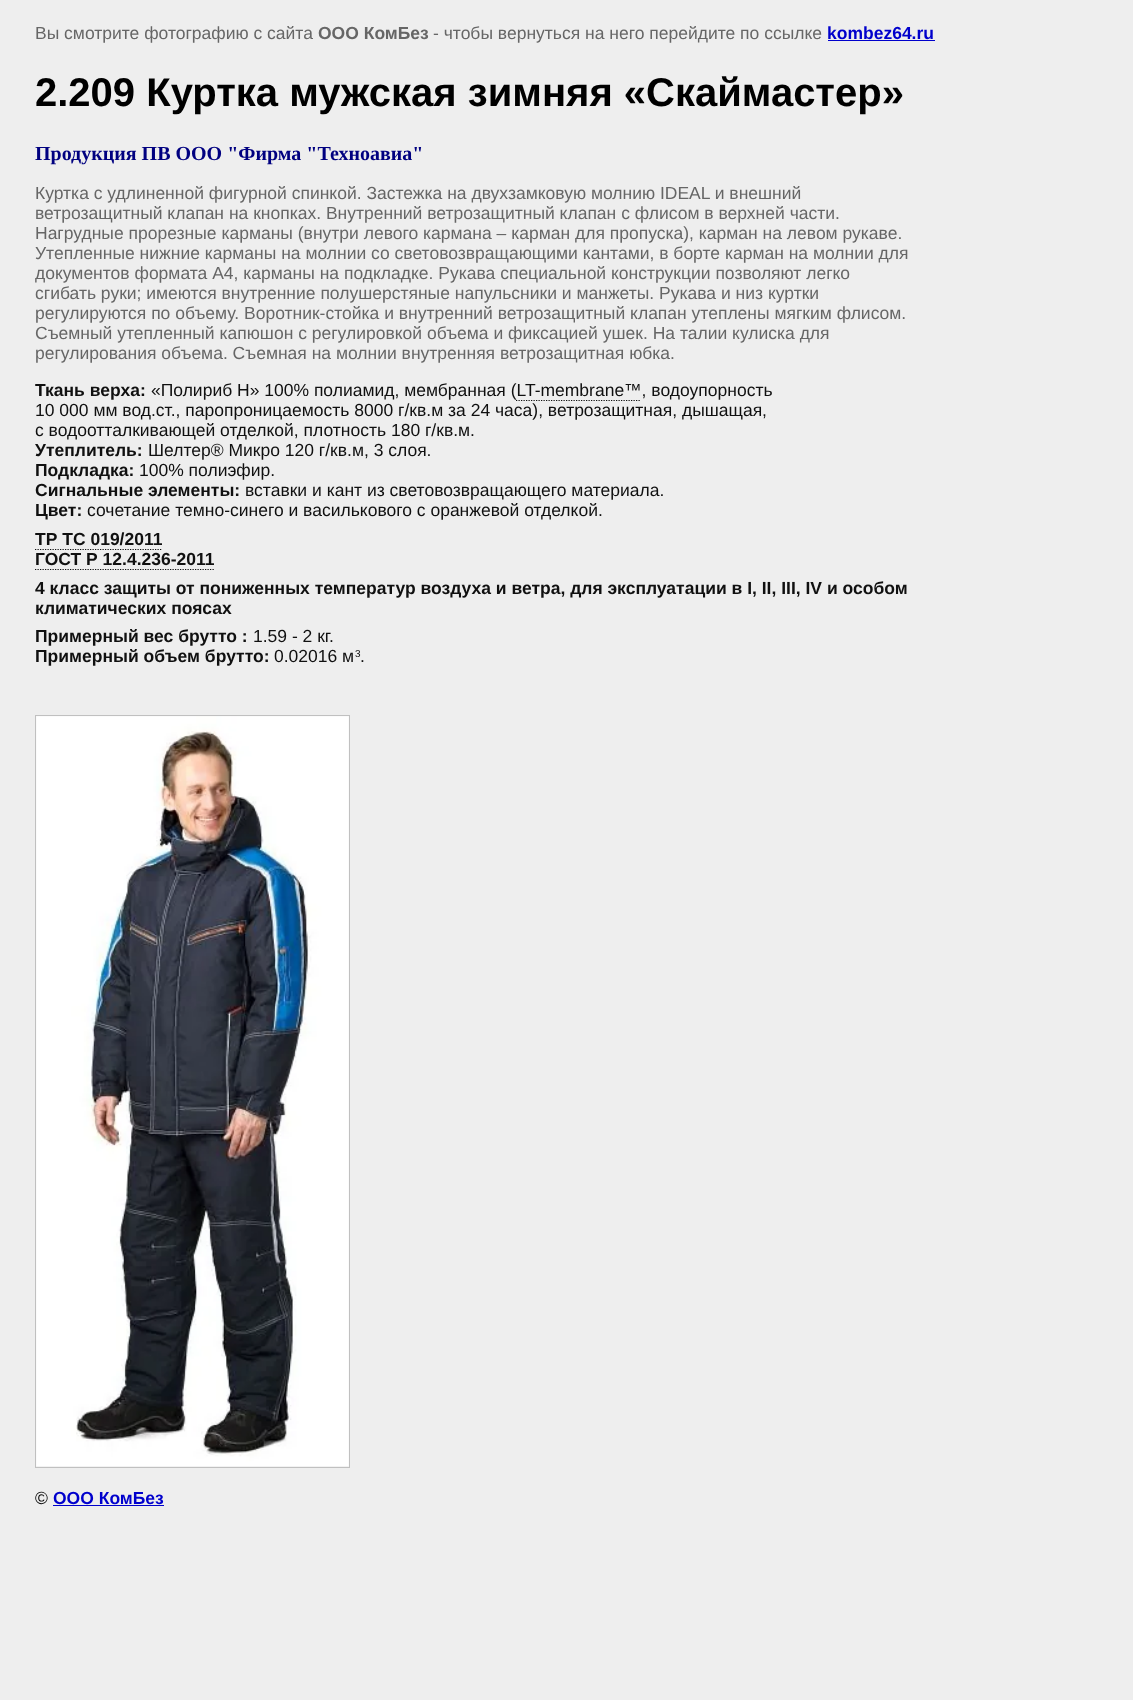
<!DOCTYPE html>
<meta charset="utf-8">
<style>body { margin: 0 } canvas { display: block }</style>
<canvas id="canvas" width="1133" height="1700"></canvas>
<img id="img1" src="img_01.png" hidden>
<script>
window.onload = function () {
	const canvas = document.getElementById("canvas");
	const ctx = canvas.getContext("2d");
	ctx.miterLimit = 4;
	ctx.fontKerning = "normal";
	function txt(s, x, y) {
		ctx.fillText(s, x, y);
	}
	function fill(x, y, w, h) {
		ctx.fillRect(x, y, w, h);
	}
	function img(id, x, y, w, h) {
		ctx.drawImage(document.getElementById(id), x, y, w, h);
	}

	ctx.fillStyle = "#EEEEEE";
	fill(0, 0, 1133, 1700);
	ctx.fillStyle = "#0000CC";
	fill(828, 40, 107, 1);
	ctx.beginPath();
	ctx.moveTo(516, 400.5);
	ctx.lineTo(641, 400.5);
	ctx.strokeStyle = "#101010";
	ctx.lineWidth = 1.2;
	ctx.setLineDash([1.25, 1.25]);
	ctx.stroke();
	ctx.beginPath();
	ctx.moveTo(35, 549.5);
	ctx.lineTo(162.5, 549.5);
	ctx.stroke();
	ctx.beginPath();
	ctx.moveTo(35, 569.5);
	ctx.lineTo(215, 569.5);
	ctx.stroke();
	ctx.strokeStyle = "#C0C0C0";
	ctx.lineWidth = 1;
	ctx.setLineDash([]);
	ctx.strokeRect(35.5, 715.5, 314, 752);
	img("img1", 36, 716, 313, 751);
	fill(53, 1505, 111, 1);
	ctx.font = "17.5px Liberation Sans";
	ctx.fillStyle = "#666666";
	txt("Вы смотрите фотографию с сайта", 35, 39);
	ctx.font = "bold 17.5px Liberation Sans";
	txt("ООО КомБез", 318, 39);
	ctx.font = "17.5px Liberation Sans";
	txt("- чтобы вернуться на него перейдите по ссылке", 433, 39);
	ctx.font = "bold 17.5px Liberation Sans";
	ctx.fillStyle = "#0000CC";
	txt("kombez64.ru", 827, 39);
	ctx.font = "bold 40px Liberation Sans";
	ctx.fillStyle = "#000000";
	txt("2.209 Куртка мужская зимняя «Скаймастер»", 35, 106);
	ctx.font = "bold 20px Liberation Serif";
	ctx.fillStyle = "#000080";
	txt("Продукция ПВ ООО \"Фирма \"Техноавиа\"", 35, 160);
	ctx.font = "17.5px Liberation Sans";
	ctx.fillStyle = "#666666";
	txt("Куртка с удлиненной фигурной спинкой. Застежка на двухзамковую молнию IDEAL и внешний", 35, 199);
	txt("ветрозащитный клапан на кнопках. Внутренний ветрозащитный клапан с флисом в верхней части.", 35, 219);
	txt("Нагрудные прорезные карманы (внутри левого кармана – карман для пропуска), карман на левом рукаве.", 35, 239);
	txt("Утепленные нижние карманы на молнии со световозвращающими кантами, в борте карман на молнии для", 35, 259);
	txt("документов формата А4, карманы на подкладке. Рукава специальной конструкции позволяют легко", 35, 279);
	txt("сгибать руки; имеются внутренние полушерстяные напульсники и манжеты. Рукава и низ куртки", 35, 299);
	txt("регулируются по объему. Воротник-стойка и внутренний ветрозащитный клапан утеплены мягким флисом.", 35, 319);
	txt("Съемный утепленный капюшон с регулировкой объема и фиксацией ушек. На талии кулиска для", 35, 339);
	txt("регулирования объема. Съемная на молнии внутренняя ветрозащитная юбка.", 35, 359);
	ctx.font = "bold 17.5px Liberation Sans";
	ctx.fillStyle = "#101010";
	txt("Ткань верха:", 35, 396);
	ctx.font = "17.5px Liberation Sans";
	txt("«Полириб Н» 100% полиамид, мембранная (LT-membrane™, водоупорность", 151, 396);
	txt("10 000 мм вод.ст., паропроницаемость 8000 г/кв.м за 24 часа), ветрозащитная, дышащая,", 35, 416);
	txt("с водоотталкивающей отделкой, плотность 180 г/кв.м.", 35, 436);
	ctx.font = "bold 17.5px Liberation Sans";
	txt("Утеплитель:", 35, 456);
	ctx.font = "17.5px Liberation Sans";
	txt("Шелтер® Микро 120 г/кв.м, 3 слоя.", 148, 456);
	ctx.font = "bold 17.5px Liberation Sans";
	txt("Подкладка:", 35, 476);
	ctx.font = "17.5px Liberation Sans";
	txt("100% полиэфир.", 139, 476);
	ctx.font = "bold 17.5px Liberation Sans";
	txt("Сигнальные элементы:", 35, 496);
	ctx.font = "17.5px Liberation Sans";
	txt("вставки и кант из световозвращающего материала.", 245, 496);
	ctx.font = "bold 17.5px Liberation Sans";
	txt("Цвет:", 35, 516);
	ctx.font = "17.5px Liberation Sans";
	txt("сочетание темно-синего и василькового с оранжевой отделкой.", 87, 516);
	ctx.font = "bold 17.5px Liberation Sans";
	txt("ТР ТС 019/2011", 35, 545);
	txt("ГОСТ Р 12.4.236-2011", 35, 565);
	txt("4 класс защиты от пониженных температур воздуха и ветра, для эксплуатации в I, II, III, IV и особом", 35, 594);
	txt("климатических поясах", 35, 614);
	txt("Примерный вес брутто :", 35, 642);
	ctx.font = "17.5px Liberation Sans";
	txt("1.59 - 2 кг.", 253, 642);
	ctx.font = "bold 17.5px Liberation Sans";
	txt("Примерный объем брутто:", 35, 662);
	ctx.font = "17.5px Liberation Sans";
	txt("0.02016 м", 274, 662);
	ctx.font = "10px Liberation Sans";
	txt("3", 355, 657);
	ctx.font = "17.5px Liberation Sans";
	txt(".", 360, 662);
	ctx.fillStyle = "#000000";
	txt("©", 35, 1504);
	ctx.font = "bold 17.5px Liberation Sans";
	ctx.fillStyle = "#0000CC";
	txt("ООО КомБез", 53, 1504);
};
</script>
